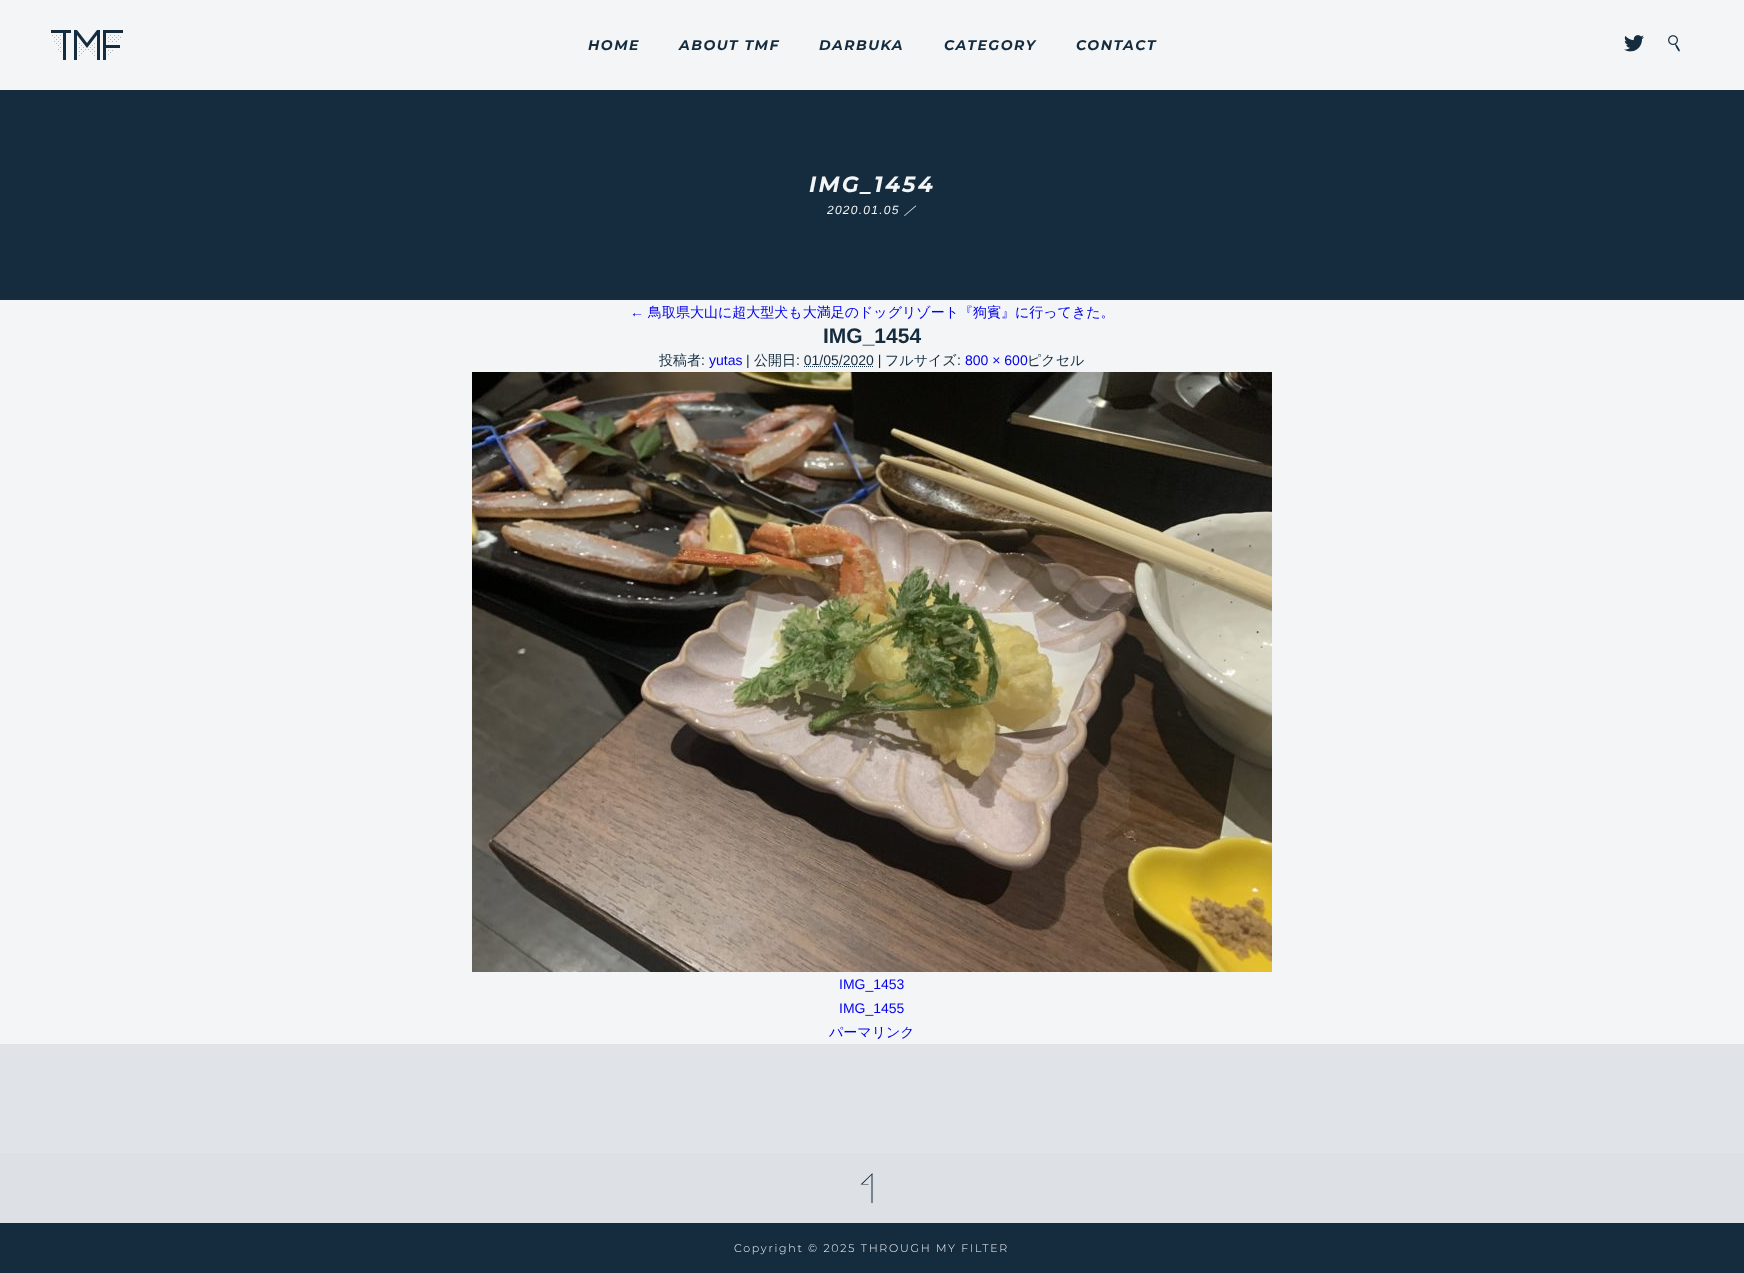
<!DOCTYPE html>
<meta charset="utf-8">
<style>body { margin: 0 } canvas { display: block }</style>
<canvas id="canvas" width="1744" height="1273"></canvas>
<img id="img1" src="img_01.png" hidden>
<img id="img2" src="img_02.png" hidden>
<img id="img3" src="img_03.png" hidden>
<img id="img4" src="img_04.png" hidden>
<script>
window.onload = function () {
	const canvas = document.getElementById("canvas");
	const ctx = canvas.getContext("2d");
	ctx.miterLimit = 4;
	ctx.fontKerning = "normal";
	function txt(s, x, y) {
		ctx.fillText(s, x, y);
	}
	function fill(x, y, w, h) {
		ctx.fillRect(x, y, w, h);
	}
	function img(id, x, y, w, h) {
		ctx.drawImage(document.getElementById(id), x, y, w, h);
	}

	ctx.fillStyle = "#F3F5F6";
	fill(0, 0, 1744, 1273);
	img("img1", 51, 30, 72, 30);
	img("img2", 1624, 35, 20, 17);
	img("img3", 1668, 35, 12, 17);
	ctx.fillStyle = "#E0E4E8";
	fill(0, 1044, 1744, 109);
	ctx.fillStyle = "#152B3E";
	fill(0, 90, 1744, 210);
	ctx.beginPath();
	ctx.moveTo(804, 366.5);
	ctx.lineTo(874, 366.5);
	ctx.strokeStyle = "#152B3E";
	ctx.setLineDash([1, 1]);
	ctx.stroke();
	img("img4", 472, 372, 800, 600);
	ctx.fillStyle = "#DDE1E5";
	fill(0, 1153, 1744, 70);
	ctx.fillStyle = "#152B3E";
	ctx.beginPath();
	ctx.moveTo(872.5, 1203);
	ctx.lineTo(872.5, 1173);
	ctx.lineTo(860.5, 1184.5);
	ctx.lineTo(868.5, 1184.5);
	ctx.lineTo(868.5, 1184);
	ctx.lineTo(862.5, 1184);
	ctx.lineTo(871.5, 1175);
	ctx.lineTo(871.5, 1203);
	ctx.closePath();
	ctx.fill();
	fill(0, 1223, 1744, 50);
	ctx.letterSpacing = "1.5px";
	ctx.font = "italic bold 14px Montserrat";
	txt("HOME", 588, 50);
	txt("ABOUT TMF", 679, 50);
	txt("DARBUKA", 819, 50);
	txt("CATEGORY", 944, 50);
	txt("CONTACT", 1076, 50);
	ctx.letterSpacing = "2.25px";
	ctx.font = "italic bold 22px Montserrat";
	ctx.fillStyle = "#F3F5F6";
	txt("IMG_1454", 809, 192);
	ctx.letterSpacing = "1.25px";
	ctx.font = "italic 12px Liberation Sans";
	txt("2020.01.05", 827, 214);
	ctx.font = "italic 500 12px WenQuanYi Zen Hei";
	txt("／", 904, 214);
	ctx.letterSpacing = "0px";
	ctx.font = "14px Liberation Sans";
	ctx.fillStyle = "#0000EE";
	txt("←", 630, 317);
	ctx.font = "500 14px WenQuanYi Zen Hei";
	txt("鳥取県大山に超大型犬も大満足のドッグリゾート『狗賓』に行ってきた。", 648, 317);
	ctx.font = "bold 21px Liberation Sans";
	ctx.fillStyle = "#152B3E";
	txt("IMG_1454", 823, 343);
	ctx.font = "500 14px WenQuanYi Zen Hei";
	txt("投稿者", 659, 365);
	ctx.font = "14px Liberation Sans";
	txt(":", 701, 365);
	ctx.fillStyle = "#0000EE";
	txt("yutas", 709, 365);
	ctx.fillStyle = "#152B3E";
	txt("|", 746, 365);
	ctx.font = "500 14px WenQuanYi Zen Hei";
	txt("公開日", 754, 365);
	ctx.font = "14px Liberation Sans";
	txt(": 01/05/2020 |", 796, 365);
	ctx.font = "500 14px WenQuanYi Zen Hei";
	txt("フルサイズ", 885, 365);
	ctx.font = "14px Liberation Sans";
	txt(":", 957, 365);
	ctx.fillStyle = "#0000EE";
	txt("800 × 600", 965, 365);
	ctx.font = "500 14px WenQuanYi Zen Hei";
	ctx.fillStyle = "#152B3E";
	txt("ピクセル", 1027, 365);
	ctx.font = "14px Liberation Sans";
	ctx.fillStyle = "#0000EE";
	txt("IMG_1453", 839, 989);
	txt("IMG_1455", 839, 1013);
	ctx.font = "500 14px WenQuanYi Zen Hei";
	txt("パーマリンク", 829, 1037);
	ctx.letterSpacing = "1.75px";
	ctx.font = "300 11px Montserrat";
	ctx.fillStyle = "#F3F5F6";
	txt("Copyright © 2025 THROUGH MY FILTER", 734, 1252);
};
</script>
